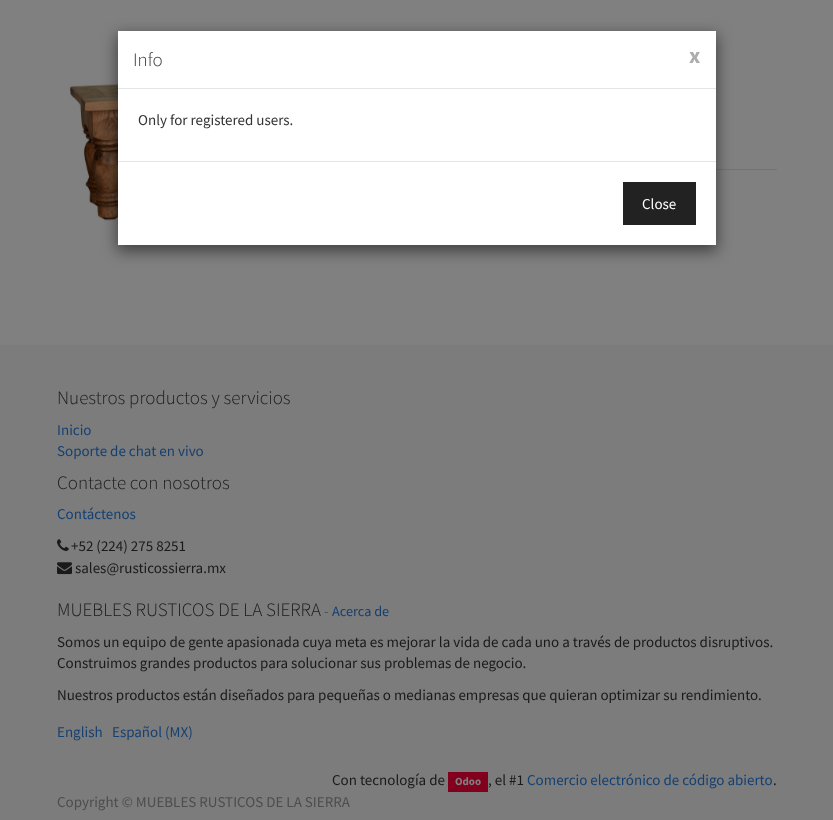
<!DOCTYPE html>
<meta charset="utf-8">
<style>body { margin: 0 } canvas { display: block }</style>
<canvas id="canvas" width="833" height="820"></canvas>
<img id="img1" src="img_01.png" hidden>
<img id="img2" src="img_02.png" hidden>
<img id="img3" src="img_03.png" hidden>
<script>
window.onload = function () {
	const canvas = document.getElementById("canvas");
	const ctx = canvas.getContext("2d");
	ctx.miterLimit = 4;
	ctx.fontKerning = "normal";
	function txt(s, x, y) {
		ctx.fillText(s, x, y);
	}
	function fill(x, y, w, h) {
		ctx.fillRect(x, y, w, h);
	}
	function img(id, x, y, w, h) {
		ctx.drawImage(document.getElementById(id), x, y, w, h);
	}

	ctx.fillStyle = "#808080";
	fill(0, 0, 833, 820);
	img("img1", 70, 70, 48, 151);
	ctx.fillStyle = "#737373";
	fill(716, 169, 61, 1);
	ctx.fillStyle = "rgba(0, 0, 0, 0.5)";
	ctx.filter = "blur(7.5px)";
	ctx.beginPath();
	ctx.rect(117, 35, 600, 216);
	ctx.fill();
	ctx.filter = "none";
	ctx.fillStyle = "#FFFFFF";
	fill(118, 31, 598, 214);
	ctx.fillStyle = "#E5E5E5";
	fill(118, 88, 598, 1);
	fill(118, 161, 598, 1);
	ctx.fillStyle = "#222222";
	fill(623, 182, 73, 43);
	ctx.fillStyle = "#7C7C7C";
	fill(0, 345, 833, 475);
	img("img2", 57, 539, 12, 12);
	img("img3", 57, 562, 15, 13);
	ctx.fillStyle = "#80001D";
	fill(448, 772, 40, 20);
	ctx.font = "300 19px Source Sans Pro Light";
	ctx.fillStyle = "#333333";
	txt("Info", 133, 66);
	ctx.font = "bold 22px Source Sans Pro";
	ctx.fillStyle = "#ADADAD";
	txt("x", 689, 63);
	ctx.font = "15px Source Sans Pro";
	ctx.fillStyle = "#333333";
	txt("Only for registered users.", 138, 125);
	ctx.fillStyle = "#FFFFFF";
	txt("Close", 642, 209);
	ctx.font = "300 19px Source Sans Pro Light";
	ctx.fillStyle = "#1A1A1A";
	txt("Nuestros productos y servicios", 57, 404);
	ctx.font = "15px Source Sans Pro";
	ctx.fillStyle = "#144072";
	txt("Inicio", 57, 435);
	txt("Soporte de chat en vivo", 57, 456);
	ctx.font = "300 19px Source Sans Pro Light";
	ctx.fillStyle = "#1A1A1A";
	txt("Contacte con nosotros", 57, 489);
	ctx.font = "15px Source Sans Pro";
	ctx.fillStyle = "#144072";
	txt("Contáctenos", 57, 519);
	ctx.fillStyle = "#1A1A1A";
	txt("+52 (224) 275 8251", 71, 551);
	txt("sales@rusticossierra.mx", 75, 573);
	ctx.font = "300 19px Source Sans Pro Light";
	txt("MUEBLES RUSTICOS DE LA SIERRA", 57, 616);
	ctx.font = "14.25px Source Sans Pro";
	ctx.fillStyle = "#4D4D4D";
	txt("-", 324, 616);
	ctx.fillStyle = "#144072";
	txt("Acerca de", 332, 616);
	ctx.font = "15px Source Sans Pro";
	ctx.fillStyle = "#1A1A1A";
	txt("Somos un equipo de gente apasionada cuya meta es mejorar la vida de cada uno a través de productos disruptivos.", 57, 647);
	txt("Construimos grandes productos para solucionar sus problemas de negocio.", 57, 668);
	txt("Nuestros productos están diseñados para pequeñas o medianas empresas que quieran optimizar su rendimiento.", 57, 700);
	ctx.fillStyle = "#144072";
	txt("English", 57, 737);
	txt("Español (MX)", 112, 737);
	ctx.fillStyle = "#1A1A1A";
	txt("Con tecnología de", 332, 785);
	ctx.font = "bold 11px Source Sans Pro";
	ctx.fillStyle = "#808080";
	txt("Odoo", 455, 785);
	ctx.font = "15px Source Sans Pro";
	ctx.fillStyle = "#1A1A1A";
	txt(", el #1", 488, 785);
	ctx.fillStyle = "#144072";
	txt("Comercio electrónico de código abierto", 527, 785);
	ctx.fillStyle = "#1A1A1A";
	txt(".", 773, 785);
	ctx.fillStyle = "#4D4D4D";
	txt("Copyright © MUEBLES RUSTICOS DE LA SIERRA", 57, 807);
};
</script>
